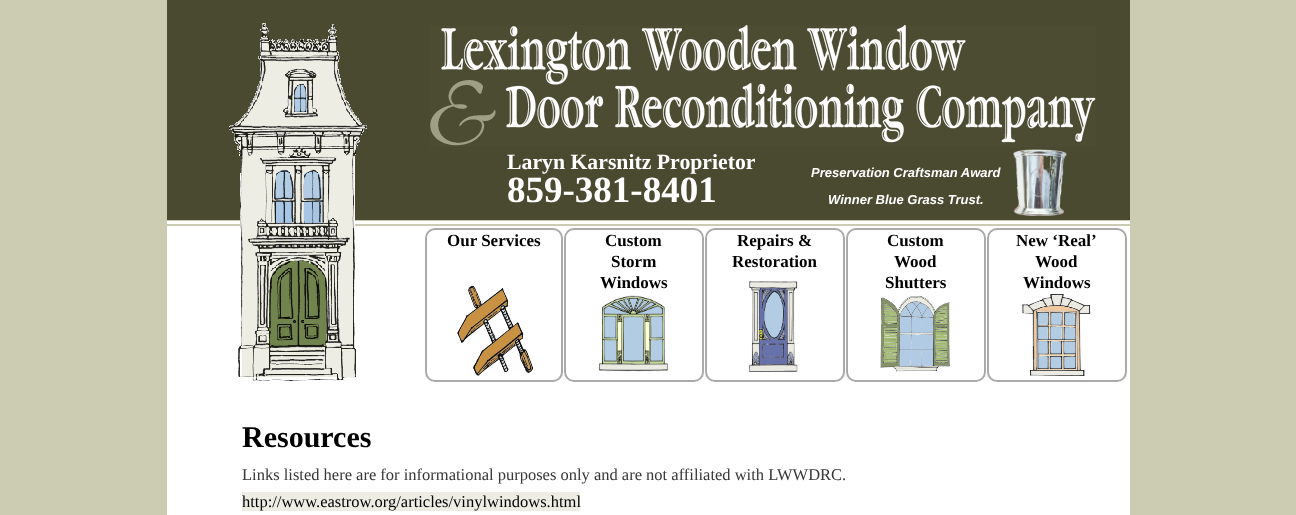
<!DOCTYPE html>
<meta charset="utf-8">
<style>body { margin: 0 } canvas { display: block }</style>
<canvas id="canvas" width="1296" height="515"></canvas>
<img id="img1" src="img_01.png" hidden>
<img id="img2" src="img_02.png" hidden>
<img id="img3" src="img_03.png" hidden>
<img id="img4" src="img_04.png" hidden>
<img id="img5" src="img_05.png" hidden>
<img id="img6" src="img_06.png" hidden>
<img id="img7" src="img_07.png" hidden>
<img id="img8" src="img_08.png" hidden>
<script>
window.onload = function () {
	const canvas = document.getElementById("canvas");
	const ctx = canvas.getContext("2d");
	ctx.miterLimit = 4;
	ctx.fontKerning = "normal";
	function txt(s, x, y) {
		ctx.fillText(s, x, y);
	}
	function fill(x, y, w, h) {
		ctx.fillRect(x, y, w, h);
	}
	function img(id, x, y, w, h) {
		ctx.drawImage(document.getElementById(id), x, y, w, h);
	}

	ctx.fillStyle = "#CCCCB3";
	fill(0, 0, 1296, 515);
	ctx.fillStyle = "#FFFFFF";
	fill(167, 221, 963, 294);
	ctx.fillStyle = "#4A4A31";
	fill(167, 0, 963, 220);
	ctx.fillStyle = "#CCCCB3";
	fill(167, 224, 963, 2);
	img("img1", 229, 23, 138, 358);
	img("img2", 430, 25, 666, 122);
	img("img3", 1013, 149, 54, 67);
	img("img4", 457, 285, 76, 91);
	ctx.beginPath();
	ctx.roundRect(426, 229, 136, 152, 9);
	ctx.strokeStyle = "#AAAAAA";
	ctx.lineWidth = 2;
	ctx.stroke();
	img("img5", 598, 295, 73, 77);
	ctx.beginPath();
	ctx.roundRect(565, 229, 138, 152, 9);
	ctx.stroke();
	img("img6", 749, 280, 49, 92);
	ctx.beginPath();
	ctx.roundRect(706, 229, 138, 152, 9);
	ctx.stroke();
	img("img7", 880, 296, 70, 76);
	ctx.beginPath();
	ctx.roundRect(847, 229, 138, 152, 9);
	ctx.stroke();
	img("img8", 1022, 294, 69, 85);
	ctx.beginPath();
	ctx.roundRect(988, 229, 138, 152, 9);
	ctx.stroke();
	ctx.fillStyle = "#EDEDE4";
	fill(242, 492, 338, 19);
	ctx.font = "bold 21.75px Liberation Serif";
	ctx.fillStyle = "#FFFFFF";
	txt("Laryn Karsnitz Proprietor", 507, 169);
	ctx.font = "bold 37px Liberation Serif";
	txt("859-381-8401", 507, 202);
	ctx.font = "italic bold 13px Liberation Sans";
	txt("Preservation Craftsman Award", 811, 177);
	txt("Winner Blue Grass Trust.", 828, 204);
	ctx.font = "bold 17px Liberation Serif";
	ctx.fillStyle = "#000000";
	txt("Our Services", 447, 246);
	txt("Custom", 605, 246);
	txt("Storm", 611, 267);
	txt("Windows", 600, 288);
	txt("Repairs &", 737, 246);
	txt("Restoration", 732, 267);
	txt("Custom", 887, 246);
	txt("Wood", 894, 267);
	txt("Shutters", 885, 288);
	txt("New ‘Real’", 1016, 246);
	txt("Wood", 1035, 267);
	txt("Windows", 1023, 288);
	ctx.font = "bold 30px Liberation Serif";
	txt("Resources", 242, 447);
	ctx.font = "16.5px Liberation Serif";
	ctx.fillStyle = "#373737";
	txt("Links listed here are for informational purposes only and are not affiliated with LWWDRC.", 242, 480);
	ctx.fillStyle = "#000000";
	txt("http://www.eastrow.org/articles/vinylwindows.html", 242, 507);
};
</script>
